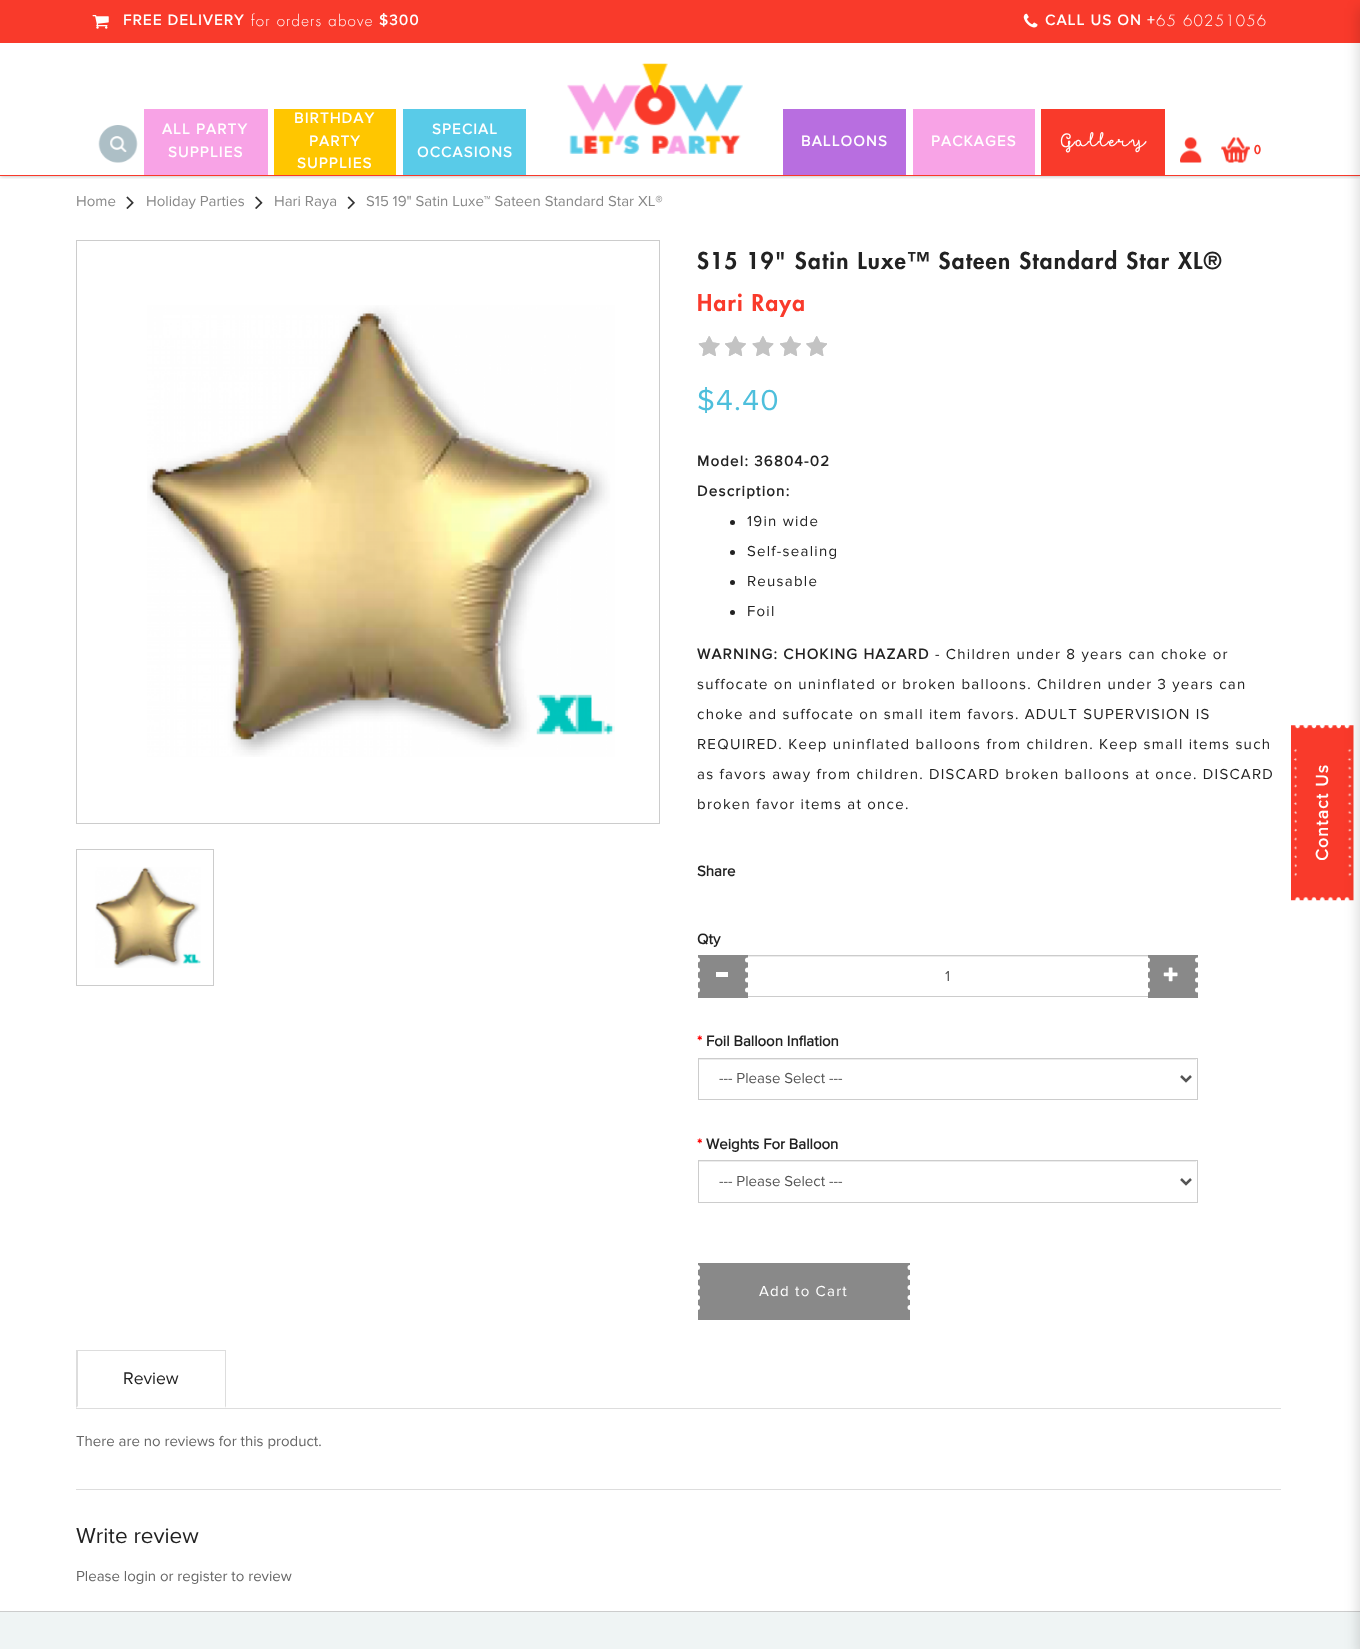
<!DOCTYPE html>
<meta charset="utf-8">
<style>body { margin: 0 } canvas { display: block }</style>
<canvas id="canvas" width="1360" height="1649"></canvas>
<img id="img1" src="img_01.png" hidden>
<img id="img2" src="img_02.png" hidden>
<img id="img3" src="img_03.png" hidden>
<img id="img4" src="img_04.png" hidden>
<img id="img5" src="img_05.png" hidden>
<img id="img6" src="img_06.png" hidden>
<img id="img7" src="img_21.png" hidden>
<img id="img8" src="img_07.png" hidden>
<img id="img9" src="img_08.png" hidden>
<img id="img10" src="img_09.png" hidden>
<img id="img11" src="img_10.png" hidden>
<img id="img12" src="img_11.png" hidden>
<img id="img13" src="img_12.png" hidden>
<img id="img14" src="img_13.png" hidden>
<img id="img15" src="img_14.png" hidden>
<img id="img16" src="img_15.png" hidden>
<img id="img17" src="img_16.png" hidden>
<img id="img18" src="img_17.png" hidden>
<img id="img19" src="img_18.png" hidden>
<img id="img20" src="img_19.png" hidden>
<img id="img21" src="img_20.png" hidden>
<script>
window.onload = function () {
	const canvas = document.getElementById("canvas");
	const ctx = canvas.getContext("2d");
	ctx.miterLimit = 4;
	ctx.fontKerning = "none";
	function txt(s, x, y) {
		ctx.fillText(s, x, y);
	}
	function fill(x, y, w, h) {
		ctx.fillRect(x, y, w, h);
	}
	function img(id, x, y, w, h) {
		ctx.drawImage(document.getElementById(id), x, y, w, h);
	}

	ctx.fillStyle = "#FFFFFF";
	fill(0, 0, 1360, 1649);
	ctx.save();
	ctx.beginPath();
	ctx.rect(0, 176, 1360, 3);
	ctx.clip();
	ctx.fillStyle = "rgba(0, 0, 0, 0.3)";
	ctx.filter = "blur(2px)";
	ctx.beginPath();
	ctx.rect(0, 0, 1360, 176);
	ctx.fill();
	ctx.filter = "none";
	ctx.restore();
	ctx.fillStyle = "#F93A2B";
	fill(0, 175, 1360, 1);
	fill(0, 0, 1360, 43);
	img("img1", 92, 15, 17, 14);
	img("img2", 1023, 13, 15, 15);
	img("img3", 98, 125, 40, 38);
	ctx.fillStyle = "#F8A3E6";
	fill(144, 109, 124, 66);
	ctx.fillStyle = "#FFC600";
	fill(274, 109, 122, 66);
	ctx.fillStyle = "#59CBE8";
	fill(403, 109, 123, 66);
	img("img4", 567, 63, 176, 91);
	ctx.fillStyle = "#B86EE0";
	fill(783, 109, 123, 66);
	ctx.fillStyle = "#F8A3E6";
	fill(913, 109, 122, 66);
	ctx.fillStyle = "#F93A2B";
	fill(1041, 109, 124, 66);
	img("img5", 1180, 137, 22, 26);
	img("img6", 1221, 137, 29, 26);
	img("img7", 1291, 725, 63, 176);
	ctx.fillStyle = "#EFF4F4";
	fill(0, 1612, 1360, 37);
	ctx.fillStyle = "#CCCCCC";
	fill(0, 1611, 1360, 1);
	ctx.fillStyle = "rgba(0, 0, 0, 0.18)";
	ctx.filter = "blur(7.5px)";
	ctx.beginPath();
	ctx.rect(1360, 8, 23, 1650);
	ctx.fill();
	ctx.filter = "none";
	img("img8", 126, 196, 8, 13);
	img("img9", 255, 196, 8, 13);
	img("img10", 347, 196, 8, 13);
	ctx.strokeStyle = "#CCCCCC";
	ctx.strokeRect(76.5, 240.5, 583, 583);
	img("img11", 147, 305, 468, 452);
	ctx.strokeRect(76.5, 849.5, 137, 136);
	img("img12", 95, 867, 106, 101);
	img("img13", 698, 336, 22, 20);
	img("img14", 698, 336, 22, 20);
	img("img15", 725, 336, 21, 20);
	img("img16", 725, 336, 21, 20);
	img("img17", 752, 336, 22, 20);
	img("img18", 752, 336, 22, 20);
	img("img15", 780, 336, 21, 20);
	img("img16", 780, 336, 21, 20);
	img("img19", 806, 336, 21, 20);
	img("img20", 806, 336, 21, 20);
	ctx.fillStyle = "#222222";
	ctx.beginPath();
	ctx.arc(732.5, 522.5, 2.5, 0, Math.PI * 2);
	ctx.fill();
	ctx.beginPath();
	ctx.arc(732.5, 552.5, 2.5, 0, Math.PI * 2);
	ctx.fill();
	ctx.beginPath();
	ctx.arc(732.5, 582.5, 2.5, 0, Math.PI * 2);
	ctx.fill();
	ctx.beginPath();
	ctx.arc(732.5, 612.5, 2.5, 0, Math.PI * 2);
	ctx.fill();
	ctx.fillStyle = "#ECECEC";
	fill(746, 956, 403, 1);
	ctx.fillStyle = "#CCCCCC";
	fill(746, 955, 403, 1);
	fill(746, 996, 403, 1);
	ctx.fillStyle = "#898989";
	fill(698, 955, 50, 43);
	ctx.beginPath();
	ctx.moveTo(697.5, 960);
	ctx.lineTo(697.5, 992.5);
	ctx.strokeStyle = "#FFFFFF";
	ctx.lineWidth = 5;
	ctx.lineCap = "round";
	ctx.setLineDash([0, 10]);
	ctx.stroke();
	ctx.fillStyle = "#FFFFFF";
	fill(716, 972, 12, 5);
	ctx.beginPath();
	ctx.moveTo(747.5, 960);
	ctx.lineTo(747.5, 992.5);
	ctx.stroke();
	ctx.fillStyle = "#898989";
	fill(1148, 955, 50, 43);
	ctx.beginPath();
	ctx.moveTo(1147.5, 960);
	ctx.lineTo(1147.5, 992.5);
	ctx.stroke();
	img("img21", 1163, 967, 15, 15);
	ctx.beginPath();
	ctx.moveTo(1197.5, 960);
	ctx.lineTo(1197.5, 992.5);
	ctx.stroke();
	ctx.fillStyle = "#ECECEC";
	fill(699, 1059, 497, 1);
	ctx.strokeStyle = "#CCCCCC";
	ctx.lineWidth = 1;
	ctx.setLineDash([]);
	ctx.strokeRect(698.5, 1058.5, 499, 41);
	ctx.beginPath();
	ctx.moveTo(1181, 1076);
	ctx.lineTo(1186, 1081);
	ctx.lineTo(1191, 1076);
	ctx.strokeStyle = "#555555";
	ctx.lineWidth = 2.5;
	ctx.lineCap = "butt";
	ctx.stroke();
	fill(699, 1161, 497, 1);
	ctx.strokeStyle = "#CCCCCC";
	ctx.lineWidth = 1;
	ctx.strokeRect(698.5, 1160.5, 499, 42);
	ctx.beginPath();
	ctx.moveTo(1181, 1179);
	ctx.lineTo(1186, 1184);
	ctx.lineTo(1191, 1179);
	ctx.strokeStyle = "#555555";
	ctx.lineWidth = 2.5;
	ctx.stroke();
	ctx.fillStyle = "#898989";
	fill(698, 1263, 212, 57);
	ctx.beginPath();
	ctx.moveTo(697.5, 1267.5);
	ctx.lineTo(697.5, 1311);
	ctx.strokeStyle = "#FFFFFF";
	ctx.lineWidth = 5;
	ctx.lineCap = "round";
	ctx.setLineDash([0, 10]);
	ctx.stroke();
	ctx.beginPath();
	ctx.moveTo(910, 1267.5);
	ctx.lineTo(910, 1311);
	ctx.stroke();
	ctx.fillStyle = "#DDDDDD";
	fill(76, 1350, 150, 1);
	ctx.beginPath();
	ctx.moveTo(226, 1350);
	ctx.lineTo(226, 1408);
	ctx.lineTo(225, 1406);
	ctx.lineTo(225, 1351);
	ctx.closePath();
	ctx.fill();
	ctx.beginPath();
	ctx.moveTo(76, 1408);
	ctx.lineTo(76, 1350);
	ctx.lineTo(78, 1351);
	ctx.lineTo(78, 1406);
	ctx.closePath();
	ctx.fill();
	fill(76, 1408, 1205, 1);
	fill(76, 1489, 1205, 1);
	ctx.letterSpacing = "1.25px";
	ctx.font = "bold 15px Proxima Nova";
	ctx.fillStyle = "#FFFFFF";
	txt("FREE DELIVERY", 123, 25);
	ctx.font = "300 15px Futura";
	txt("for orders above", 251, 26);
	ctx.font = "bold 15px Proxima Nova";
	txt("$300", 379, 25);
	txt("CALL US ON +", 1045, 25);
	ctx.font = "300 15px Futura";
	txt("65 60251056", 1156, 26);
	ctx.font = "bold 15px Proxima Nova";
	txt("ALL PARTY", 162, 134);
	txt("SUPPLIES", 168, 157);
	txt("BIRTHDAY", 294, 123);
	txt("PARTY", 309, 146);
	txt("SUPPLIES", 297, 168);
	txt("SPECIAL", 432, 134);
	txt("OCCASIONS", 417, 157);
	txt("BALLOONS", 801, 146);
	txt("PACKAGES", 931, 146);
	ctx.font = "bold 17.5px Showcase";
	txt("Gallery", 1060, 146);
	ctx.letterSpacing = "0px";
	ctx.font = "900 12px Futura";
	ctx.fillStyle = "#F93A2B";
	txt("0", 1254, 154);
	ctx.font = "15px Proxima Nova";
	ctx.fillStyle = "#888888";
	txt("Home", 76, 206);
	txt("Holiday Parties", 146, 206);
	txt("Hari Raya", 274, 206);
	txt("S15 19\" Satin Luxe™ Sateen Standard Star XL®", 366, 206);
	ctx.letterSpacing = "1.25px";
	ctx.font = "900 22.5px Futura";
	ctx.fillStyle = "#222222";
	txt("S15 19\" Satin Luxe™ Sateen Standard Star XL®", 697, 269);
	ctx.fillStyle = "#F93A2B";
	txt("Hari Raya", 697, 311);
	ctx.font = "30px Proxima Nova";
	ctx.fillStyle = "#4EBFDC";
	txt("$4.40", 697, 410);
	ctx.font = "bold 15px Proxima Nova";
	ctx.fillStyle = "#222222";
	txt("Model: 36804-02", 697, 466);
	txt("Description:", 697, 496);
	ctx.font = "15px Proxima Nova";
	txt("19in wide", 747, 526);
	txt("Self-sealing", 747, 556);
	txt("Reusable", 747, 586);
	txt("Foil", 747, 616);
	ctx.font = "bold 15px Proxima Nova";
	txt("WARNING: CHOKING HAZARD", 697, 659);
	ctx.font = "15px Proxima Nova";
	txt("- Children under 8 years can choke or", 935, 659);
	txt("suffocate on uninflated or broken balloons. Children under 3 years can", 697, 689);
	txt("choke and suffocate on small item favors. ADULT SUPERVISION IS", 697, 719);
	txt("REQUIRED. Keep uninflated balloons from children. Keep small items such", 697, 749);
	txt("as favors away from children. DISCARD broken balloons at once. DISCARD", 697, 779);
	txt("broken favor items at once.", 697, 809);
	ctx.letterSpacing = "0px";
	ctx.font = "bold 15px Proxima Nova";
	txt("Share", 697, 876);
	txt("Qty", 697, 944);
	ctx.font = "15px Proxima Nova";
	ctx.fillStyle = "#555555";
	txt("1", 945, 981);
	ctx.font = "bold 15px Proxima Nova";
	ctx.fillStyle = "#FF0000";
	txt("*", 697, 1046);
	ctx.fillStyle = "#222222";
	txt("Foil Balloon Inflation", 706, 1046);
	ctx.font = "15px Proxima Nova";
	ctx.fillStyle = "#555555";
	txt("--- Please Select ---", 719, 1083);
	ctx.font = "bold 15px Proxima Nova";
	ctx.fillStyle = "#FF0000";
	txt("*", 697, 1149);
	ctx.fillStyle = "#222222";
	txt("Weights For Balloon", 706, 1149);
	ctx.font = "15px Proxima Nova";
	ctx.fillStyle = "#555555";
	txt("--- Please Select ---", 719, 1186);
	ctx.letterSpacing = "1.25px";
	ctx.fillStyle = "#FFFFFF";
	txt("Add to Cart", 759, 1296);
	ctx.letterSpacing = "0px";
	ctx.font = "17.5px Proxima Nova";
	ctx.fillStyle = "#222222";
	txt("Review", 123, 1384);
	ctx.font = "15px Proxima Nova";
	ctx.fillStyle = "#666666";
	txt("There are no reviews for this product.", 76, 1446);
	ctx.font = "22.5px Proxima Nova";
	ctx.fillStyle = "#222222";
	txt("Write review", 76, 1543);
	ctx.font = "15px Proxima Nova";
	ctx.fillStyle = "#666666";
	txt("Please login or register to review", 76, 1581);
	ctx.letterSpacing = "1.25px";
	ctx.font = "bold 17.5px Proxima Nova";
	ctx.fillStyle = "#FFFFFF";
	ctx.save();
	ctx.translate(1328, 861);
	ctx.rotate(-90 * Math.PI / 180);
	ctx.fillText("Contact Us", 0, 0);
	ctx.restore();
};
</script>
